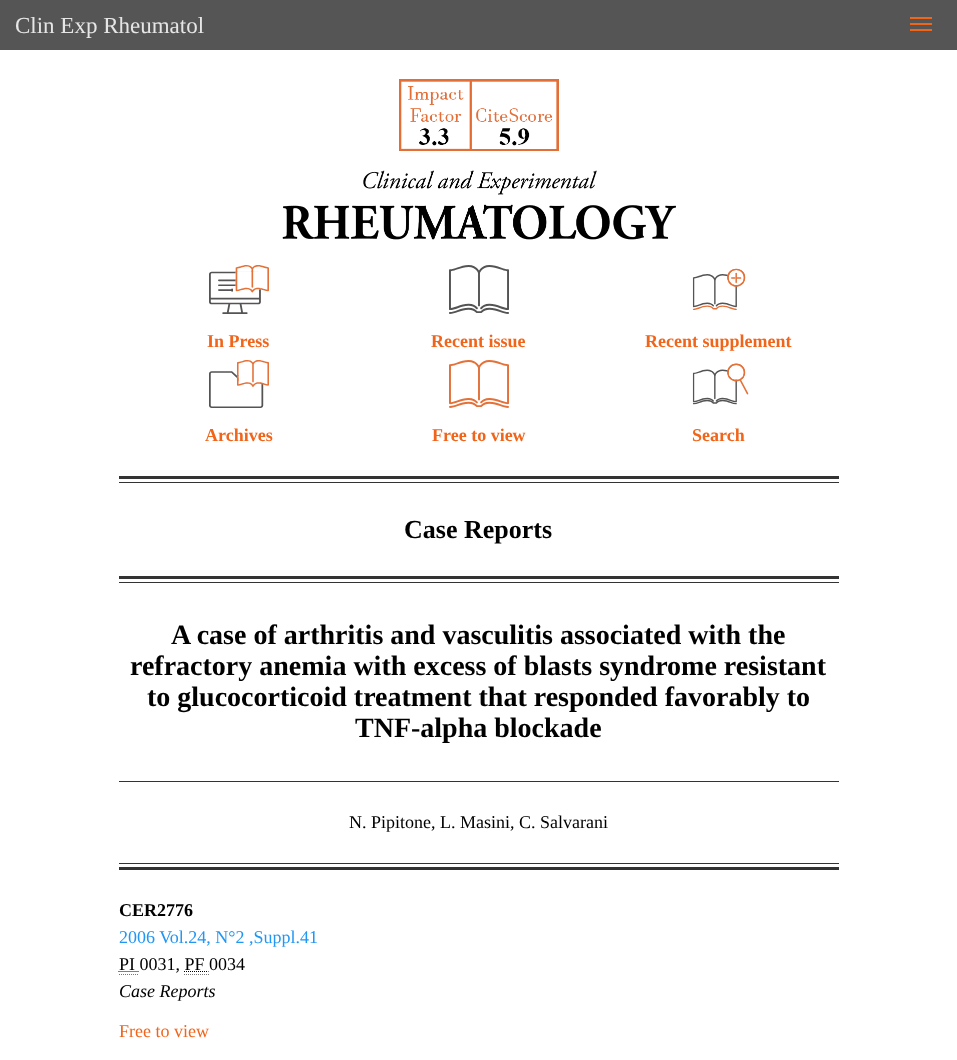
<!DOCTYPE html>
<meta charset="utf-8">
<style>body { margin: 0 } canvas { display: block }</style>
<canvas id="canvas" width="957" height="1060"></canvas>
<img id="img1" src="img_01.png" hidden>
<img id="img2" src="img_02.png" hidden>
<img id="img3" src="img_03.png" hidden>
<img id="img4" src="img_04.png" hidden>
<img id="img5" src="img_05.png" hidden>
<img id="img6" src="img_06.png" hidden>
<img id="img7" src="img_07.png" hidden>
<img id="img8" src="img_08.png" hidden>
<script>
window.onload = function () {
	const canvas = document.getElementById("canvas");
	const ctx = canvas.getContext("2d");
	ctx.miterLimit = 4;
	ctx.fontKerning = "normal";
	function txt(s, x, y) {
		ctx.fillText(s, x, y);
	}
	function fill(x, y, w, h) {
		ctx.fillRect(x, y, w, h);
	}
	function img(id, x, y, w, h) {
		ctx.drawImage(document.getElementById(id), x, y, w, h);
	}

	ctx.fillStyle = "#FFFFFF";
	fill(0, 0, 957, 1060);
	ctx.fillStyle = "#555555";
	fill(0, 0, 957, 50);
	ctx.fillStyle = "#F1651B";
	fill(910, 17, 22, 2);
	fill(910, 23, 22, 2);
	fill(910, 29, 22, 2);
	img("img1", 399, 79, 160, 72);
	img("img2", 282, 170, 394, 70);
	img("img3", 209, 265, 60, 49);
	img("img4", 449, 265, 60, 49);
	img("img5", 692, 268, 54, 42);
	img("img6", 209, 360, 60, 48);
	img("img7", 449, 360, 60, 48);
	img("img8", 692, 363, 57, 42);
	ctx.fillStyle = "#333333";
	fill(119, 476, 720, 3);
	fill(119, 482, 720, 1);
	fill(119, 576, 720, 3);
	fill(119, 582, 720, 1);
	fill(119, 781, 720, 1);
	fill(119, 863, 720, 1);
	fill(119, 867, 720, 3);
	ctx.beginPath();
	ctx.moveTo(119, 974.5);
	ctx.lineTo(139, 974.5);
	ctx.strokeStyle = "#777777";
	ctx.setLineDash([1, 1]);
	ctx.stroke();
	ctx.beginPath();
	ctx.moveTo(118.5, 971.5);
	ctx.lineTo(139, 971.5);
	ctx.strokeStyle = "#000000";
	ctx.stroke();
	ctx.beginPath();
	ctx.moveTo(184, 971.5);
	ctx.lineTo(208.5, 971.5);
	ctx.stroke();
	ctx.beginPath();
	ctx.moveTo(184, 974.5);
	ctx.lineTo(209, 974.5);
	ctx.strokeStyle = "#777777";
	ctx.stroke();
	ctx.font = "23px Liberation Serif";
	ctx.fillStyle = "#E6E6E6";
	txt("Clin Exp Rheumatol", 15, 33);
	ctx.font = "bold 18px Liberation Serif";
	ctx.fillStyle = "#F1651B";
	txt("In Press", 207, 347);
	txt("Recent issue", 431, 347);
	txt("Recent supplement", 645, 347);
	txt("Archives", 205, 441);
	txt("Free to view", 432, 441);
	txt("Search", 692, 441);
	ctx.font = "bold 26px Liberation Serif";
	ctx.fillStyle = "#000000";
	txt("Case Reports", 404, 538);
	ctx.font = "bold 28px Liberation Serif";
	txt("A case of arthritis and vasculitis associated with the", 171, 644);
	txt("refractory anemia with excess of blasts syndrome resistant", 130, 675);
	txt("to glucocorticoid treatment that responded favorably to", 147, 706);
	txt("TNF-alpha blockade", 355, 737);
	ctx.font = "18px Liberation Serif";
	txt("N. Pipitone, L. Masini, C. Salvarani", 349, 828);
	ctx.font = "bold 18px Liberation Serif";
	txt("CER2776", 119, 916);
	ctx.font = "18px Liberation Serif";
	ctx.fillStyle = "#2196F3";
	txt("2006 Vol.24, N°2 ,Suppl.41", 119, 943);
	ctx.fillStyle = "#000000";
	txt("PI 0031, PF 0034", 119, 970);
	ctx.font = "italic 18px Liberation Serif";
	txt("Case Reports", 119, 997);
	ctx.font = "18px Liberation Serif";
	ctx.fillStyle = "#F1651B";
	txt("Free to view", 119, 1037);
};
</script>
